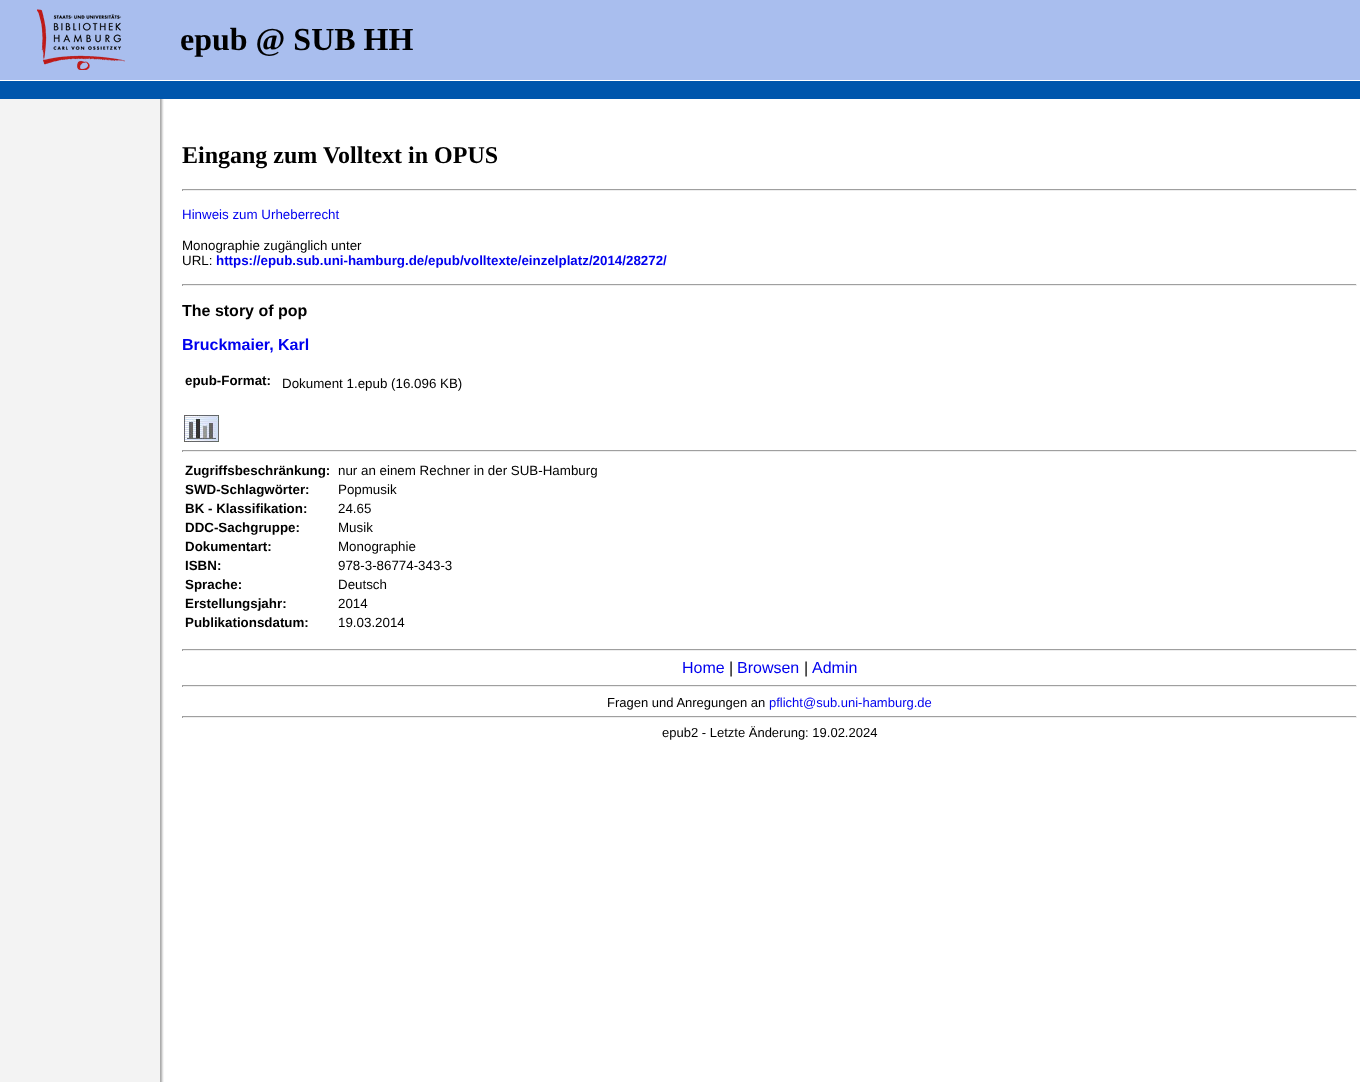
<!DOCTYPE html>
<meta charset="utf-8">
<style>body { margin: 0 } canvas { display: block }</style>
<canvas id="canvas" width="1360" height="1082"></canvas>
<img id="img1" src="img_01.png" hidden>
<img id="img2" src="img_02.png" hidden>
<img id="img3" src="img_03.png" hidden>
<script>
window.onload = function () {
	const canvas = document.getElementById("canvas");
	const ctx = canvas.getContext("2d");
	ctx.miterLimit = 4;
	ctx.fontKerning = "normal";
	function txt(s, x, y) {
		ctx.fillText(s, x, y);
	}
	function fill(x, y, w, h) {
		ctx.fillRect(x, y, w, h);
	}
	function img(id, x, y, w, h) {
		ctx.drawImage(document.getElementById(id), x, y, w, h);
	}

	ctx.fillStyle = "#FFFFFF";
	fill(0, 0, 1360, 1082);
	img("img1", 0, 99, 164, 983);
	ctx.fillStyle = "#A9BEEE";
	fill(0, 0, 1360, 80);
	img("img2", 37, 9, 88, 61);
	ctx.fillStyle = "#0056AC";
	fill(0, 81, 1360, 18);
	ctx.fillStyle = "#9F9F9F";
	fill(182, 189, 1175, 1);
	ctx.fillStyle = "#EEEEEE";
	fill(1356, 189, 1, 2);
	fill(182, 190, 1175, 1);
	ctx.fillStyle = "#9F9F9F";
	fill(182, 189, 1, 2);
	fill(182, 284, 1175, 1);
	ctx.fillStyle = "#EEEEEE";
	fill(1356, 284, 1, 2);
	fill(182, 285, 1175, 1);
	ctx.fillStyle = "#9F9F9F";
	fill(182, 284, 1, 2);
	img("img3", 184, 415, 35, 27);
	fill(182, 450, 1175, 1);
	ctx.fillStyle = "#EEEEEE";
	fill(1356, 450, 1, 2);
	fill(182, 451, 1175, 1);
	ctx.fillStyle = "#9F9F9F";
	fill(182, 450, 1, 2);
	fill(182, 649, 1175, 1);
	ctx.fillStyle = "#EEEEEE";
	fill(1356, 649, 1, 2);
	fill(182, 650, 1175, 1);
	ctx.fillStyle = "#9F9F9F";
	fill(182, 649, 1, 2);
	fill(182, 685, 1175, 1);
	ctx.fillStyle = "#EEEEEE";
	fill(1356, 685, 1, 2);
	fill(182, 686, 1175, 1);
	ctx.fillStyle = "#9F9F9F";
	fill(182, 685, 1, 2);
	fill(182, 716, 1175, 1);
	ctx.fillStyle = "#EEEEEE";
	fill(1356, 716, 1, 2);
	fill(182, 717, 1175, 1);
	ctx.fillStyle = "#9F9F9F";
	fill(182, 716, 1, 2);
	ctx.font = "bold 32px Liberation Serif";
	ctx.fillStyle = "#000000";
	txt("epub @ SUB HH", 180, 50);
	ctx.font = "bold 24px Liberation Serif";
	txt("Eingang zum Volltext in OPUS", 182, 163);
	ctx.font = "13.35px Liberation Sans";
	ctx.fillStyle = "#0000EE";
	txt("Hinweis zum Urheberrecht", 182, 219);
	ctx.fillStyle = "#000000";
	txt("Monographie zugänglich unter", 182, 250);
	txt("URL:", 182, 265);
	ctx.font = "bold 13.35px Liberation Sans";
	ctx.fillStyle = "#0000EE";
	txt("https://epub.sub.uni-hamburg.de/epub/volltexte/einzelplatz/2014/28272/", 216, 265);
	ctx.font = "bold 16px Liberation Sans";
	ctx.fillStyle = "#000000";
	txt("The story of pop", 182, 316);
	ctx.fillStyle = "#0000EE";
	txt("Bruckmaier, Karl", 182, 350);
	ctx.font = "bold 13.35px Liberation Sans";
	ctx.fillStyle = "#000000";
	txt("epub-Format:", 185, 385);
	ctx.font = "13.35px Liberation Sans";
	txt("Dokument 1.epub (16.096 KB)", 282, 388);
	ctx.font = "bold 13.35px Liberation Sans";
	txt("Zugriffsbeschränkung:", 185, 475);
	ctx.font = "13.35px Liberation Sans";
	txt("nur an einem Rechner in der SUB-Hamburg", 338, 475);
	ctx.font = "bold 13.35px Liberation Sans";
	txt("SWD-Schlagwörter:", 185, 494);
	ctx.font = "13.35px Liberation Sans";
	txt("Popmusik", 338, 494);
	ctx.font = "bold 13.35px Liberation Sans";
	txt("BK - Klassifikation:", 185, 513);
	ctx.font = "13.35px Liberation Sans";
	txt("24.65", 338, 513);
	ctx.font = "bold 13.35px Liberation Sans";
	txt("DDC-Sachgruppe:", 185, 532);
	ctx.font = "13.35px Liberation Sans";
	txt("Musik", 338, 532);
	ctx.font = "bold 13.35px Liberation Sans";
	txt("Dokumentart:", 185, 551);
	ctx.font = "13.35px Liberation Sans";
	txt("Monographie", 338, 551);
	ctx.font = "bold 13.35px Liberation Sans";
	txt("ISBN:", 185, 570);
	ctx.font = "13.35px Liberation Sans";
	txt("978-3-86774-343-3", 338, 570);
	ctx.font = "bold 13.35px Liberation Sans";
	txt("Sprache:", 185, 589);
	ctx.font = "13.35px Liberation Sans";
	txt("Deutsch", 338, 589);
	ctx.font = "bold 13.35px Liberation Sans";
	txt("Erstellungsjahr:", 185, 608);
	ctx.font = "13.35px Liberation Sans";
	txt("2014", 338, 608);
	ctx.font = "bold 13.35px Liberation Sans";
	txt("Publikationsdatum:", 185, 627);
	ctx.font = "13.35px Liberation Sans";
	txt("19.03.2014", 338, 627);
	ctx.font = "16px Liberation Sans";
	ctx.fillStyle = "#0000EE";
	txt("Home", 682, 673);
	ctx.fillStyle = "#000000";
	txt("|", 729, 673);
	ctx.fillStyle = "#0000EE";
	txt("Browsen", 737, 673);
	ctx.fillStyle = "#000000";
	txt("|", 804, 673);
	ctx.fillStyle = "#0000EE";
	txt("Admin", 812, 673);
	ctx.font = "13px Liberation Sans";
	ctx.fillStyle = "#000000";
	txt("Fragen und Anregungen an", 607, 707);
	ctx.fillStyle = "#0000EE";
	txt("pflicht@sub.uni-hamburg.de", 769, 707);
	ctx.fillStyle = "#000000";
	txt("epub2 - Letzte Änderung: 19.02.2024", 662, 737);
};
</script>
